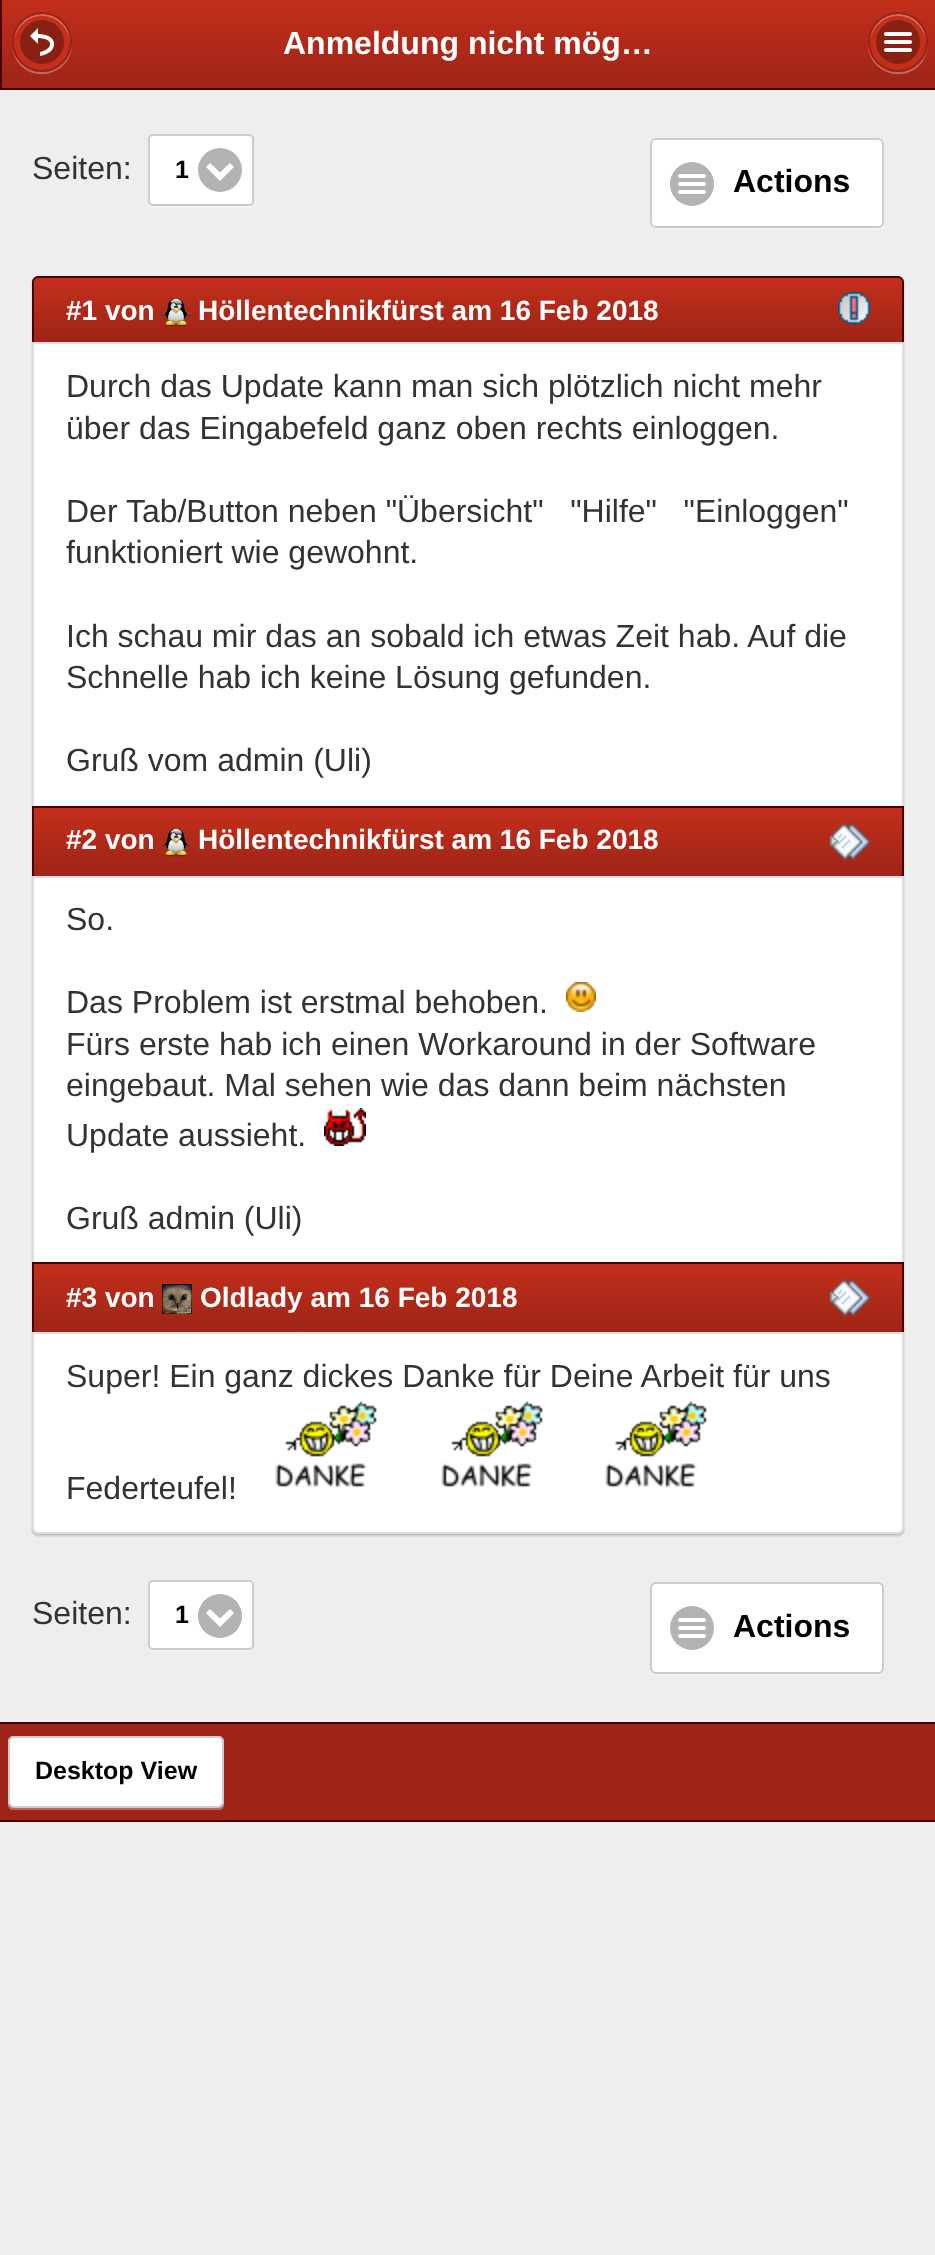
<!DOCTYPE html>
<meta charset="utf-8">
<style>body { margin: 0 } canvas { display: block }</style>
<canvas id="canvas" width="935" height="2255"></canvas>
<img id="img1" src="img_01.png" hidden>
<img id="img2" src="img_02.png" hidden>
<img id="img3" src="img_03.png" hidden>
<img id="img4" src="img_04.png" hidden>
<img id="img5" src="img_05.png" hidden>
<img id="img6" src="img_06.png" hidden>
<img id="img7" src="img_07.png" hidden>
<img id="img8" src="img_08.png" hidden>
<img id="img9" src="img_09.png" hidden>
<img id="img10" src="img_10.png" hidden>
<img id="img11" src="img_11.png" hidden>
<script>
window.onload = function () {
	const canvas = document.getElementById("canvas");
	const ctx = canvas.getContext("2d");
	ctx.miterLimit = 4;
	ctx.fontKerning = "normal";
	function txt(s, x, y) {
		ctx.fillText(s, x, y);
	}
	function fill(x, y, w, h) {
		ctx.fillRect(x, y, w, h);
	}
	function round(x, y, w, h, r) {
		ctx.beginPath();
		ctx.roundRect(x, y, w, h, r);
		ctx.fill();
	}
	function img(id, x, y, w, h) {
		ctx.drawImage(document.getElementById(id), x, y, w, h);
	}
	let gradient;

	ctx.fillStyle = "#EEEEEE";
	fill(0, 0, 935, 2255);
	gradient = ctx.createLinearGradient(470, 0, 470, 88);
	gradient.addColorStop(0, "#C22F1B");
	gradient.addColorStop(1, "#9E2417");
	ctx.fillStyle = gradient;
	fill(2, 0, 933, 88);
	ctx.strokeStyle = "#490100";
	ctx.lineWidth = 2;
	ctx.strokeRect(1, -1, 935, 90);
	ctx.fillStyle = "rgba(255, 255, 255, 0.3)";
	ctx.beginPath();
	ctx.moveTo(12, 43);
	ctx.bezierCurveTo(12, 49, 14, 56, 17, 61);
	ctx.bezierCurveTo(34, 86, 73, 73, 72, 43);
	ctx.bezierCurveTo(71, 59, 58, 72, 42, 72);
	ctx.bezierCurveTo(26, 72, 13, 59, 12, 43);
	ctx.closePath();
	ctx.fill();
	ctx.fillStyle = "#C22F1B";
	ctx.beginPath();
	ctx.arc(42, 42, 28, 0, Math.PI * 2);
	ctx.fill();
	ctx.fillStyle = "rgba(255, 255, 255, 0.3)";
	ctx.beginPath();
	ctx.moveTo(42, 16);
	ctx.bezierCurveTo(57, 16, 69, 28, 70, 43);
	ctx.bezierCurveTo(70, 37, 69, 31, 65, 26);
	ctx.bezierCurveTo(50, 3, 13, 15, 14, 43);
	ctx.bezierCurveTo(15, 28, 27, 16, 42, 16);
	ctx.closePath();
	ctx.fill();
	ctx.beginPath();
	ctx.arc(42, 42, 29, 0, Math.PI * 2);
	ctx.strokeStyle = "#9E2417";
	ctx.stroke();
	ctx.fillStyle = "#882113";
	ctx.beginPath();
	ctx.arc(42, 42, 22, 0, Math.PI * 2);
	ctx.fill();
	img("img1", 30, 28, 24, 28);
	ctx.fillStyle = "rgba(255, 255, 255, 0.3)";
	ctx.beginPath();
	ctx.moveTo(868, 43);
	ctx.bezierCurveTo(867, 73, 906, 86, 923, 61);
	ctx.bezierCurveTo(926, 56, 928, 49, 928, 43);
	ctx.bezierCurveTo(927, 59, 914, 72, 898, 72);
	ctx.bezierCurveTo(882, 72, 869, 59, 868, 43);
	ctx.closePath();
	ctx.fill();
	ctx.fillStyle = "#C22F1B";
	ctx.beginPath();
	ctx.arc(898, 42, 28, 0, Math.PI * 2);
	ctx.fill();
	ctx.fillStyle = "rgba(255, 255, 255, 0.3)";
	ctx.beginPath();
	ctx.moveTo(898, 16);
	ctx.bezierCurveTo(913, 16, 925, 28, 926, 43);
	ctx.bezierCurveTo(926, 37, 925, 31, 921, 26);
	ctx.bezierCurveTo(906, 3, 869, 15, 870, 43);
	ctx.bezierCurveTo(871, 28, 883, 16, 898, 16);
	ctx.closePath();
	ctx.fill();
	ctx.beginPath();
	ctx.arc(898, 42, 29, 0, Math.PI * 2);
	ctx.stroke();
	ctx.fillStyle = "#882113";
	ctx.beginPath();
	ctx.arc(898, 42, 22, 0, Math.PI * 2);
	ctx.fill();
	img("img2", 884, 32, 28, 20);
	ctx.fillStyle = "#F3F3F3";
	ctx.beginPath();
	ctx.moveTo(148, 201);
	ctx.lineTo(148, 203);
	ctx.bezierCurveTo(148, 206, 150, 208, 153, 208);
	ctx.lineTo(249, 208);
	ctx.bezierCurveTo(252, 208, 254, 206, 254, 203);
	ctx.lineTo(254, 201);
	ctx.bezierCurveTo(254, 204, 252, 206, 249, 206);
	ctx.lineTo(153, 206);
	ctx.bezierCurveTo(150, 206, 148, 204, 148, 201);
	ctx.closePath();
	ctx.fill();
	ctx.fillStyle = "#FFFFFF";
	ctx.beginPath();
	ctx.roundRect(149, 135, 104, 70, 4);
	ctx.fill();
	ctx.strokeStyle = "#CCCCCC";
	ctx.stroke();
	ctx.fillStyle = "#B3B3B3";
	ctx.beginPath();
	ctx.arc(220, 170, 22, 0, Math.PI * 2);
	ctx.fill();
	ctx.fillStyle = "#FFFFFF";
	ctx.beginPath();
	ctx.moveTo(230, 163);
	ctx.lineTo(220, 172.5);
	ctx.lineTo(210, 163);
	ctx.lineTo(206, 167);
	ctx.lineTo(220, 181);
	ctx.lineTo(234, 167);
	ctx.closePath();
	ctx.fill();
	ctx.fillStyle = "#F3F3F3";
	ctx.beginPath();
	ctx.moveTo(650, 222);
	ctx.lineTo(650, 224);
	ctx.bezierCurveTo(650, 227, 653, 230, 656, 230);
	ctx.lineTo(878, 230);
	ctx.bezierCurveTo(881, 230, 884, 227, 884, 224);
	ctx.lineTo(884, 222);
	ctx.bezierCurveTo(884, 225, 881, 228, 878, 228);
	ctx.lineTo(656, 228);
	ctx.bezierCurveTo(653, 228, 650, 225, 650, 222);
	ctx.closePath();
	ctx.fill();
	ctx.fillStyle = "#FFFFFF";
	ctx.beginPath();
	ctx.roundRect(651, 139, 232, 88, 5);
	ctx.fill();
	ctx.stroke();
	ctx.fillStyle = "#B3B3B3";
	ctx.beginPath();
	ctx.arc(692, 184, 22, 0, Math.PI * 2);
	ctx.fill();
	img("img3", 678, 174, 28, 20);
	ctx.fillStyle = "rgba(0, 0, 0, 0.2)";
	ctx.filter = "blur(1px)";
	ctx.beginPath();
	ctx.roundRect(32, 278, 872, 1258, 6);
	ctx.fill();
	ctx.filter = "none";
	gradient = ctx.createLinearGradient(468, 278, 468, 342);
	gradient.addColorStop(0, "#C22F1B");
	gradient.addColorStop(1, "#9E2417");
	ctx.fillStyle = gradient;
	ctx.beginPath();
	ctx.roundRect(34, 278, 868, 64, [4, 4, 0, 0]);
	ctx.fill();
	ctx.fillStyle = "#490100";
	ctx.beginPath();
	ctx.moveTo(38, 276);
	ctx.lineTo(898, 276);
	ctx.bezierCurveTo(901, 276, 904, 279, 904, 282);
	ctx.lineTo(904, 342);
	ctx.lineTo(32, 342);
	ctx.lineTo(32, 282);
	ctx.bezierCurveTo(32, 279, 35, 276, 38, 276);
	ctx.closePath();
	ctx.moveTo(38, 278);
	ctx.lineTo(898, 278);
	ctx.bezierCurveTo(900, 278, 902, 280, 902, 282);
	ctx.lineTo(902, 342);
	ctx.lineTo(34, 342);
	ctx.lineTo(34, 282);
	ctx.bezierCurveTo(34, 280, 36, 278, 38, 278);
	ctx.closePath();
	ctx.fill("evenodd");
	img("img4", 162, 298, 28, 29);
	img("img5", 838, 292, 32, 32);
	ctx.fillStyle = "#FFFFFF";
	fill(34, 344, 868, 462);
	ctx.fillStyle = "#DDDDDD";
	fill(32, 342, 872, 2);
	fill(902, 342, 2, 464);
	fill(32, 342, 2, 464);
	gradient = ctx.createLinearGradient(468, 808, 468, 876);
	gradient.addColorStop(0, "#C22F1B");
	gradient.addColorStop(1, "#9E2417");
	ctx.fillStyle = gradient;
	fill(34, 808, 868, 68);
	ctx.fillStyle = "#490100";
	fill(32, 806, 872, 2);
	fill(902, 806, 2, 70);
	fill(32, 806, 2, 70);
	img("img6", 162, 828, 28, 29);
	img("img7", 830, 823, 40, 38);
	ctx.fillStyle = "#FFFFFF";
	fill(34, 878, 868, 384);
	ctx.fillStyle = "#DDDDDD";
	fill(32, 876, 872, 2);
	fill(902, 876, 2, 386);
	fill(32, 876, 2, 386);
	img("img8", 566, 982, 30, 30);
	img("img9", 324, 1108, 42, 38);
	gradient = ctx.createLinearGradient(468, 1264, 468, 1332);
	gradient.addColorStop(0, "#C22F1B");
	gradient.addColorStop(1, "#9E2417");
	ctx.fillStyle = gradient;
	fill(34, 1264, 868, 68);
	ctx.fillStyle = "#490100";
	fill(32, 1262, 872, 2);
	fill(902, 1262, 2, 70);
	fill(32, 1262, 2, 70);
	img("img10", 162, 1284, 30, 30);
	img("img7", 830, 1279, 40, 38);
	ctx.fillStyle = "#FFFFFF";
	ctx.beginPath();
	ctx.roundRect(33, 1333, 870, 200, [0, 0, 5, 5]);
	ctx.fill();
	ctx.strokeStyle = "#DDDDDD";
	ctx.stroke();
	img("img11", 275, 1401, 102, 88);
	img("img11", 441, 1401, 102, 88);
	img("img11", 605, 1401, 102, 88);
	ctx.fillStyle = "#F3F3F3";
	ctx.beginPath();
	ctx.moveTo(148, 1645);
	ctx.lineTo(148, 1647);
	ctx.bezierCurveTo(148, 1650, 150, 1652, 153, 1652);
	ctx.lineTo(249, 1652);
	ctx.bezierCurveTo(252, 1652, 254, 1650, 254, 1647);
	ctx.lineTo(254, 1645);
	ctx.bezierCurveTo(254, 1648, 252, 1650, 249, 1650);
	ctx.lineTo(153, 1650);
	ctx.bezierCurveTo(150, 1650, 148, 1648, 148, 1645);
	ctx.closePath();
	ctx.fill();
	ctx.fillStyle = "#FFFFFF";
	ctx.beginPath();
	ctx.roundRect(149, 1581, 104, 68, 4);
	ctx.fill();
	ctx.strokeStyle = "#CCCCCC";
	ctx.stroke();
	ctx.fillStyle = "#B3B3B3";
	ctx.beginPath();
	ctx.arc(220, 1616, 22, 0, Math.PI * 2);
	ctx.fill();
	ctx.fillStyle = "#FFFFFF";
	ctx.beginPath();
	ctx.moveTo(230, 1609);
	ctx.lineTo(220, 1618.5);
	ctx.lineTo(210, 1609);
	ctx.lineTo(206, 1613);
	ctx.lineTo(220, 1627);
	ctx.lineTo(234, 1613);
	ctx.closePath();
	ctx.fill();
	ctx.fillStyle = "#F3F3F3";
	ctx.beginPath();
	ctx.moveTo(650, 1668);
	ctx.lineTo(650, 1670);
	ctx.bezierCurveTo(650, 1673, 653, 1676, 656, 1676);
	ctx.lineTo(878, 1676);
	ctx.bezierCurveTo(881, 1676, 884, 1673, 884, 1670);
	ctx.lineTo(884, 1668);
	ctx.bezierCurveTo(884, 1671, 881, 1674, 878, 1674);
	ctx.lineTo(656, 1674);
	ctx.bezierCurveTo(653, 1674, 650, 1671, 650, 1668);
	ctx.closePath();
	ctx.fill();
	ctx.fillStyle = "#FFFFFF";
	ctx.beginPath();
	ctx.roundRect(651, 1583, 232, 90, 5);
	ctx.fill();
	ctx.stroke();
	ctx.fillStyle = "#B3B3B3";
	ctx.beginPath();
	ctx.arc(692, 1628, 22, 0, Math.PI * 2);
	ctx.fill();
	img("img3", 678, 1618, 28, 20);
	ctx.fillStyle = "#9E2417";
	fill(0, 1724, 935, 96);
	ctx.fillStyle = "#490100";
	fill(0, 1722, 935, 2);
	fill(0, 1820, 935, 2);
	ctx.fillStyle = "#BB665D";
	ctx.beginPath();
	ctx.moveTo(8, 1803);
	ctx.lineTo(8, 1805);
	ctx.bezierCurveTo(8, 1808, 10, 1810, 13, 1810);
	ctx.lineTo(219, 1810);
	ctx.bezierCurveTo(222, 1810, 224, 1808, 224, 1805);
	ctx.lineTo(224, 1803);
	ctx.bezierCurveTo(224, 1806, 222, 1808, 219, 1808);
	ctx.lineTo(13, 1808);
	ctx.bezierCurveTo(10, 1808, 8, 1806, 8, 1803);
	ctx.closePath();
	ctx.fill();
	ctx.fillStyle = "#FFFFFF";
	round(10, 1738, 212, 68, 3);
	ctx.fillStyle = "rgba(255, 255, 255, 0.3)";
	ctx.beginPath();
	ctx.moveTo(13, 1740);
	ctx.lineTo(219, 1740);
	ctx.bezierCurveTo(221, 1740, 222, 1741, 222, 1743);
	ctx.bezierCurveTo(222, 1741, 222, 1738, 219, 1738);
	ctx.lineTo(13, 1738);
	ctx.bezierCurveTo(10, 1738, 10, 1741, 10, 1743);
	ctx.bezierCurveTo(10, 1741, 11, 1740, 13, 1740);
	ctx.closePath();
	ctx.fill();
	ctx.beginPath();
	ctx.roundRect(9, 1737, 214, 70, 4);
	ctx.stroke();
	ctx.font = "bold 32px Liberation Sans";
	ctx.fillStyle = "#FFFFFF";
	txt("Anmeldung nicht mög…", 283, 54);
	ctx.font = "32px Liberation Sans";
	ctx.fillStyle = "#333333";
	txt("Seiten:", 32, 179);
	ctx.font = "bold 25px Liberation Sans";
	ctx.fillStyle = "#000000";
	txt("1", 175, 178);
	ctx.font = "bold 32px Liberation Sans";
	txt("Actions", 733, 192);
	ctx.font = "bold 28px Liberation Sans";
	ctx.fillStyle = "#FFFFFF";
	txt("#1 von", 66, 320);
	txt("Höllentechnikfürst am 16 Feb 2018", 198, 320);
	ctx.font = "32px Liberation Sans";
	ctx.fillStyle = "#333333";
	txt("Durch das Update kann man sich plötzlich nicht mehr", 66, 397);
	txt("über das Eingabefeld ganz oben rechts einloggen.", 66, 439);
	txt("Der Tab/Button neben \"Übersicht\"   \"Hilfe\"   \"Einloggen\"", 66, 522);
	txt("funktioniert wie gewohnt.", 66, 563);
	txt("Ich schau mir das an sobald ich etwas Zeit hab. Auf die", 66, 647);
	txt("Schnelle hab ich keine Lösung gefunden.", 66, 688);
	txt("Gruß vom admin (Uli)", 66, 771);
	ctx.font = "bold 28px Liberation Sans";
	ctx.fillStyle = "#FFFFFF";
	txt("#2 von", 66, 849);
	txt("Höllentechnikfürst am 16 Feb 2018", 198, 849);
	ctx.font = "32px Liberation Sans";
	ctx.fillStyle = "#333333";
	txt("So.", 66, 930);
	txt("Das Problem ist erstmal behoben.", 66, 1013);
	txt("Fürs erste hab ich einen Workaround in der Software", 66, 1055);
	txt("eingebaut. Mal sehen wie das dann beim nächsten", 66, 1096);
	txt("Update aussieht.", 66, 1146);
	txt("Gruß admin (Uli)", 66, 1229);
	ctx.font = "bold 28px Liberation Sans";
	ctx.fillStyle = "#FFFFFF";
	txt("#3 von", 66, 1307);
	txt("Oldlady am 16 Feb 2018", 200, 1307);
	ctx.font = "32px Liberation Sans";
	ctx.fillStyle = "#333333";
	txt("Super! Ein ganz dickes Danke für Deine Arbeit für uns", 66, 1387);
	txt("Federteufel!", 66, 1499);
	txt("Seiten:", 32, 1624);
	ctx.font = "bold 25px Liberation Sans";
	ctx.fillStyle = "#000000";
	txt("1", 175, 1623);
	ctx.font = "bold 32px Liberation Sans";
	txt("Actions", 733, 1637);
	ctx.font = "bold 25px Liberation Sans";
	txt("Desktop View", 35, 1779);
};
</script>
